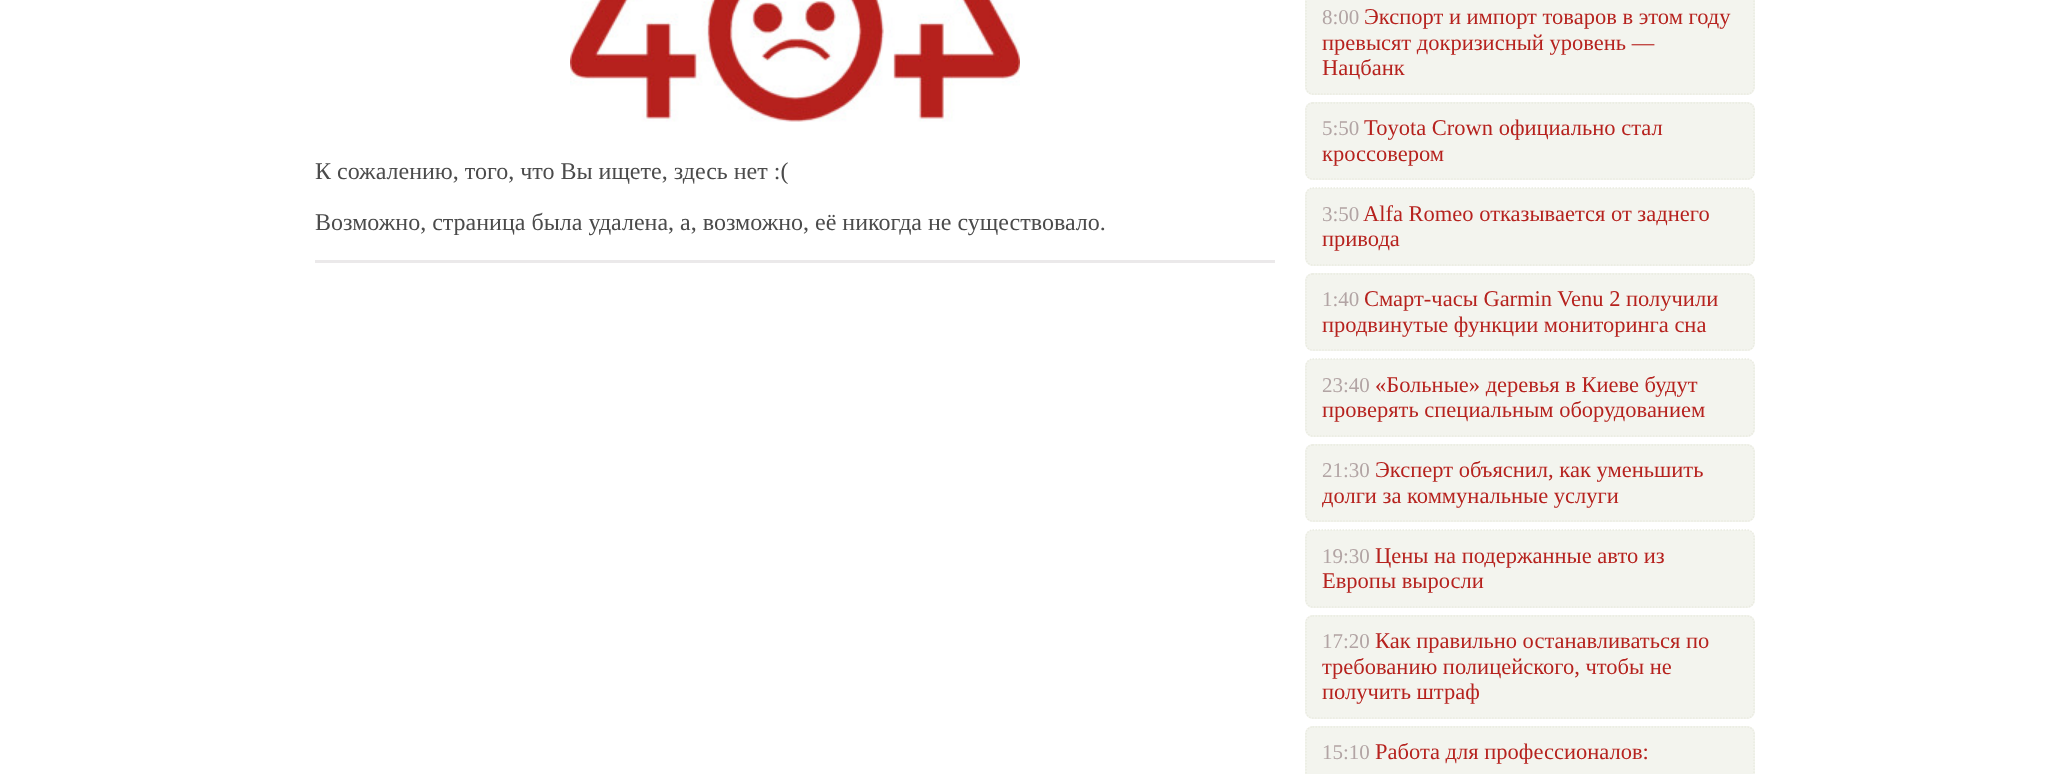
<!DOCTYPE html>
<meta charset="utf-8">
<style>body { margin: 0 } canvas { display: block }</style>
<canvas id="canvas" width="2070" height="774"></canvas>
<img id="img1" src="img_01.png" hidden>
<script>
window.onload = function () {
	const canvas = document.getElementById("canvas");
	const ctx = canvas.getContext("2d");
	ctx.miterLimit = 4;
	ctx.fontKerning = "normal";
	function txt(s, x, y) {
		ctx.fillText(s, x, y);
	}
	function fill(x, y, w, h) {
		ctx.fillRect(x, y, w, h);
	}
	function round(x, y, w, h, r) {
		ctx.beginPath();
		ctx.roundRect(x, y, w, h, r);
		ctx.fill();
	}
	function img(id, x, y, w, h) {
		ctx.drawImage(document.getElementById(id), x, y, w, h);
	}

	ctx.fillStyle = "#FFFFFF";
	fill(0, 0, 2070, 774);
	img("img1", 570, 0, 450, 122);
	ctx.fillStyle = "#EBE9EA";
	fill(315, 260, 960, 3);
	ctx.fillStyle = "#F3F4EE";
	round(1305, -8, 450, 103, 8);
	ctx.beginPath();
	ctx.moveTo(1312.5, -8);
	ctx.lineTo(1747.5, -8);
	ctx.bezierCurveTo(1751, -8, 1754, -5, 1754, -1.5);
	ctx.lineTo(1754, 87);
	ctx.bezierCurveTo(1754, 90.5, 1751, 94, 1747.5, 94);
	ctx.lineTo(1312.5, 94);
	ctx.bezierCurveTo(1309, 94, 1306, 90.5, 1306, 87);
	ctx.lineTo(1306, -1.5);
	ctx.bezierCurveTo(1306, -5, 1309, -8, 1312.5, -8);
	ctx.closePath();
	ctx.strokeStyle = "#EAEBE1";
	ctx.lineWidth = 1.5;
	ctx.setLineDash([1.5, 1.5]);
	ctx.stroke();
	round(1305, 102, 450, 78, 8);
	ctx.beginPath();
	ctx.moveTo(1312.5, 103);
	ctx.lineTo(1747.5, 103);
	ctx.bezierCurveTo(1751, 103, 1754, 106, 1754, 109.5);
	ctx.lineTo(1754, 172.5);
	ctx.bezierCurveTo(1754, 176, 1751, 179, 1747.5, 179);
	ctx.lineTo(1312.5, 179);
	ctx.bezierCurveTo(1309, 179, 1306, 176, 1306, 172.5);
	ctx.lineTo(1306, 109.5);
	ctx.bezierCurveTo(1306, 106, 1309, 103, 1312.5, 103);
	ctx.closePath();
	ctx.stroke();
	round(1305, 188, 450, 78, 8);
	ctx.beginPath();
	ctx.moveTo(1312.5, 188);
	ctx.lineTo(1747.5, 188);
	ctx.bezierCurveTo(1751, 188, 1754, 191.5, 1754, 195);
	ctx.lineTo(1754, 258);
	ctx.bezierCurveTo(1754, 261.5, 1751, 265, 1747.5, 265);
	ctx.lineTo(1312.5, 265);
	ctx.bezierCurveTo(1309, 265, 1306, 261.5, 1306, 258);
	ctx.lineTo(1306, 195);
	ctx.bezierCurveTo(1306, 191.5, 1309, 188, 1312.5, 188);
	ctx.closePath();
	ctx.stroke();
	round(1305, 273, 450, 78, 8);
	ctx.beginPath();
	ctx.moveTo(1312.5, 274);
	ctx.lineTo(1747.5, 274);
	ctx.bezierCurveTo(1751, 274, 1754, 277, 1754, 280.5);
	ctx.lineTo(1754, 343.5);
	ctx.bezierCurveTo(1754, 347, 1751, 350, 1747.5, 350);
	ctx.lineTo(1312.5, 350);
	ctx.bezierCurveTo(1309, 350, 1306, 347, 1306, 343.5);
	ctx.lineTo(1306, 280.5);
	ctx.bezierCurveTo(1306, 277, 1309, 274, 1312.5, 274);
	ctx.closePath();
	ctx.stroke();
	round(1305, 359, 450, 78, 8);
	ctx.beginPath();
	ctx.moveTo(1312.5, 359);
	ctx.lineTo(1747.5, 359);
	ctx.bezierCurveTo(1751, 359, 1754, 362.5, 1754, 366);
	ctx.lineTo(1754, 429);
	ctx.bezierCurveTo(1754, 432.5, 1751, 436, 1747.5, 436);
	ctx.lineTo(1312.5, 436);
	ctx.bezierCurveTo(1309, 436, 1306, 432.5, 1306, 429);
	ctx.lineTo(1306, 366);
	ctx.bezierCurveTo(1306, 362.5, 1309, 359, 1312.5, 359);
	ctx.closePath();
	ctx.stroke();
	round(1305, 444, 450, 78, 8);
	ctx.beginPath();
	ctx.moveTo(1312.5, 445);
	ctx.lineTo(1747.5, 445);
	ctx.bezierCurveTo(1751, 445, 1754, 448, 1754, 451.5);
	ctx.lineTo(1754, 514.5);
	ctx.bezierCurveTo(1754, 518, 1751, 521, 1747.5, 521);
	ctx.lineTo(1312.5, 521);
	ctx.bezierCurveTo(1309, 521, 1306, 518, 1306, 514.5);
	ctx.lineTo(1306, 451.5);
	ctx.bezierCurveTo(1306, 448, 1309, 445, 1312.5, 445);
	ctx.closePath();
	ctx.stroke();
	round(1305, 530, 450, 78, 8);
	ctx.beginPath();
	ctx.moveTo(1312.5, 530);
	ctx.lineTo(1747.5, 530);
	ctx.bezierCurveTo(1751, 530, 1754, 533.5, 1754, 537);
	ctx.lineTo(1754, 600);
	ctx.bezierCurveTo(1754, 603.5, 1751, 607, 1747.5, 607);
	ctx.lineTo(1312.5, 607);
	ctx.bezierCurveTo(1309, 607, 1306, 603.5, 1306, 600);
	ctx.lineTo(1306, 537);
	ctx.bezierCurveTo(1306, 533.5, 1309, 530, 1312.5, 530);
	ctx.closePath();
	ctx.stroke();
	round(1305, 615, 450, 104, 8);
	ctx.beginPath();
	ctx.moveTo(1312.5, 616);
	ctx.lineTo(1747.5, 616);
	ctx.bezierCurveTo(1751, 616, 1754, 619, 1754, 622.5);
	ctx.lineTo(1754, 711);
	ctx.bezierCurveTo(1754, 714.5, 1751, 718, 1747.5, 718);
	ctx.lineTo(1312.5, 718);
	ctx.bezierCurveTo(1309, 718, 1306, 714.5, 1306, 711);
	ctx.lineTo(1306, 622.5);
	ctx.bezierCurveTo(1306, 619, 1309, 616, 1312.5, 616);
	ctx.closePath();
	ctx.stroke();
	round(1305, 726, 450, 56, 8);
	ctx.beginPath();
	ctx.moveTo(1312.5, 727);
	ctx.lineTo(1747.5, 727);
	ctx.bezierCurveTo(1751, 727, 1754, 730, 1754, 733.5);
	ctx.lineTo(1754, 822);
	ctx.bezierCurveTo(1754, 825.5, 1751, 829, 1747.5, 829);
	ctx.lineTo(1312.5, 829);
	ctx.bezierCurveTo(1309, 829, 1306, 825.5, 1306, 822);
	ctx.lineTo(1306, 733.5);
	ctx.bezierCurveTo(1306, 730, 1309, 727, 1312.5, 727);
	ctx.closePath();
	ctx.stroke();
	ctx.font = "24px Liberation Serif";
	ctx.fillStyle = "#4B4B4B";
	txt("К сожалению, того, что Вы ищете, здесь нет :(", 315, 179);
	txt("Возможно, страница была удалена, а, возможно, её никогда не существовало.", 315, 230);
	ctx.font = "21px Liberation Serif";
	ctx.fillStyle = "#B2A4A4";
	txt("8:00", 1322, 24);
	ctx.font = "22.5px Liberation Serif";
	ctx.fillStyle = "#B6221E";
	txt("Экспорт и импорт товаров в этом году", 1364, 24);
	txt("превысят докризисный уровень —", 1322, 50);
	txt("Нацбанк", 1322, 75);
	ctx.font = "21px Liberation Serif";
	ctx.fillStyle = "#B2A4A4";
	txt("5:50", 1322, 135);
	ctx.font = "22.5px Liberation Serif";
	ctx.fillStyle = "#B6221E";
	txt("Toyota Crown официально стал", 1364, 135);
	txt("кроссовером", 1322, 161);
	ctx.font = "21px Liberation Serif";
	ctx.fillStyle = "#B2A4A4";
	txt("3:50", 1322, 221);
	ctx.font = "22.5px Liberation Serif";
	ctx.fillStyle = "#B6221E";
	txt("Alfa Romeo отказывается от заднего", 1363, 221);
	txt("привода", 1322, 246);
	ctx.font = "21px Liberation Serif";
	ctx.fillStyle = "#B2A4A4";
	txt("1:40", 1322, 306);
	ctx.font = "22.5px Liberation Serif";
	ctx.fillStyle = "#B6221E";
	txt("Смарт-часы Garmin Venu 2 получили", 1364, 306);
	txt("продвинутые функции мониторинга сна", 1322, 332);
	ctx.font = "21px Liberation Serif";
	ctx.fillStyle = "#B2A4A4";
	txt("23:40", 1322, 392);
	ctx.font = "22.5px Liberation Serif";
	ctx.fillStyle = "#B6221E";
	txt("«Больные» деревья в Киеве будут", 1375, 392);
	txt("проверять специальным оборудованием", 1322, 417);
	ctx.font = "21px Liberation Serif";
	ctx.fillStyle = "#B2A4A4";
	txt("21:30", 1322, 477);
	ctx.font = "22.5px Liberation Serif";
	ctx.fillStyle = "#B6221E";
	txt("Эксперт объяснил, как уменьшить", 1375, 477);
	txt("долги за коммунальные услуги", 1322, 503);
	ctx.font = "21px Liberation Serif";
	ctx.fillStyle = "#B2A4A4";
	txt("19:30", 1322, 563);
	ctx.font = "22.5px Liberation Serif";
	ctx.fillStyle = "#B6221E";
	txt("Цены на подержанные авто из", 1375, 563);
	txt("Европы выросли", 1322, 588);
	ctx.font = "21px Liberation Serif";
	ctx.fillStyle = "#B2A4A4";
	txt("17:20", 1322, 648);
	ctx.font = "22.5px Liberation Serif";
	ctx.fillStyle = "#B6221E";
	txt("Как правильно останавливаться по", 1375, 648);
	txt("требованию полицейского, чтобы не", 1322, 674);
	txt("получить штраф", 1322, 699);
	ctx.font = "21px Liberation Serif";
	ctx.fillStyle = "#B2A4A4";
	txt("15:10", 1322, 759);
	ctx.font = "22.5px Liberation Serif";
	ctx.fillStyle = "#B6221E";
	txt("Работа для профессионалов:", 1375, 759);
};
</script>
